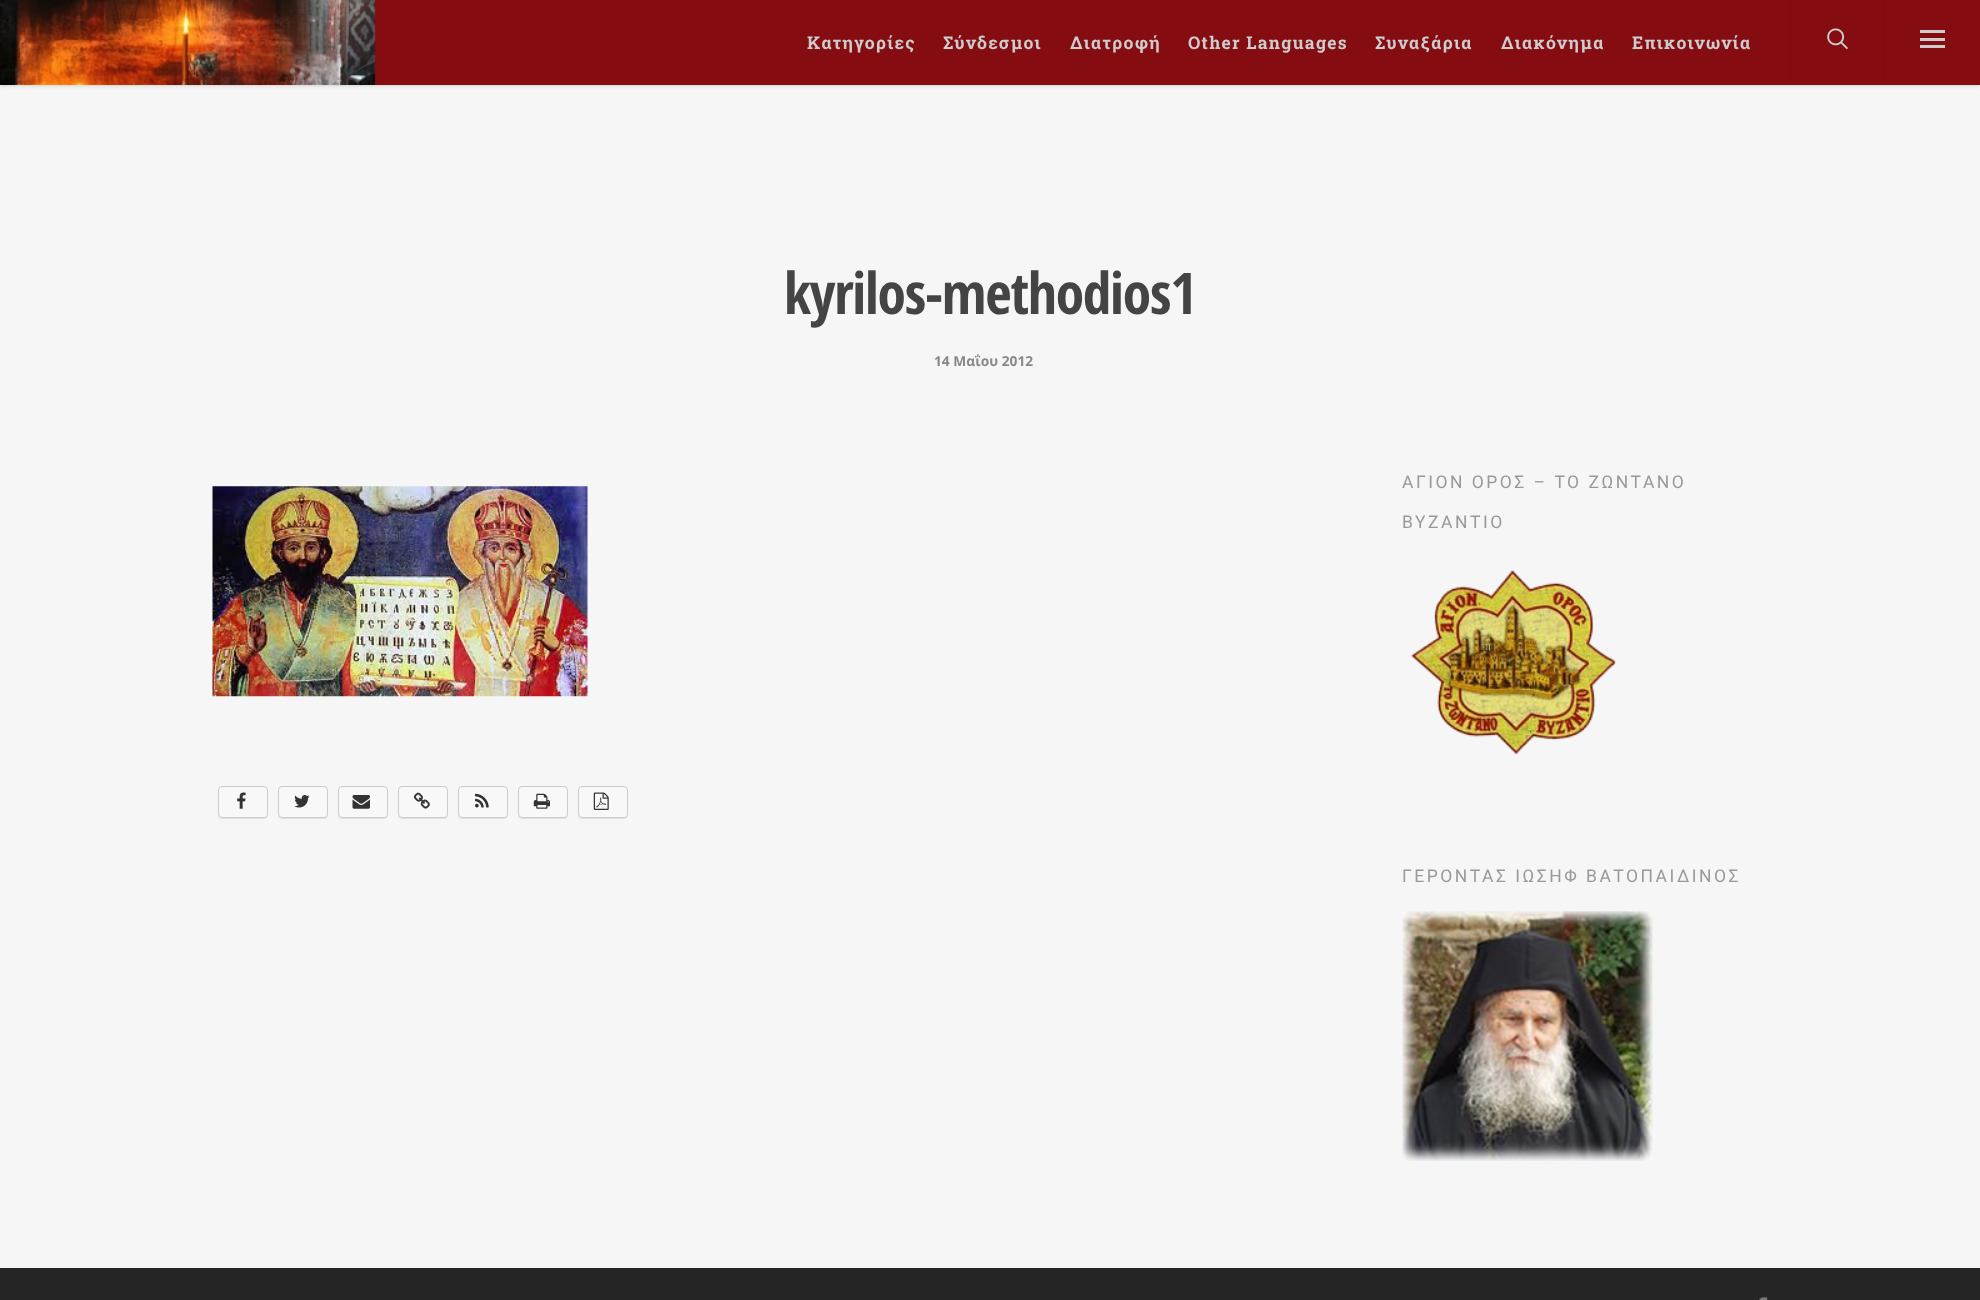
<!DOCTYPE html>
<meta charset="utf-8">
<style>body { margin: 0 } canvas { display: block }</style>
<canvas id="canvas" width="1980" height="1300"></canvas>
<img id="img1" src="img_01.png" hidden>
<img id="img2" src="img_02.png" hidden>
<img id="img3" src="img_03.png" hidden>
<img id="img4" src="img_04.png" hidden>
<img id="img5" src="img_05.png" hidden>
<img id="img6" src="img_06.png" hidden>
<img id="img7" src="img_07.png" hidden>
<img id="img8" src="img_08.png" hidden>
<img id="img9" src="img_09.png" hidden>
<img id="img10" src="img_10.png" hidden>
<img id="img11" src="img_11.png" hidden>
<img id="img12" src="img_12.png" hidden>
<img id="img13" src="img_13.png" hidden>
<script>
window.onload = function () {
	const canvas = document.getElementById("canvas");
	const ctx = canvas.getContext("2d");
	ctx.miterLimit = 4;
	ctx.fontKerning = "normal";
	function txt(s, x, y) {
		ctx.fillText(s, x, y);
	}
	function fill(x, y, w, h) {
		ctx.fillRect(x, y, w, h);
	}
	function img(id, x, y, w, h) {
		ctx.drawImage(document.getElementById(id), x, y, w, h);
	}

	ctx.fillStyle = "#252525";
	fill(0, 0, 1980, 1300);
	ctx.fillStyle = "#F6F6F6";
	fill(0, 85, 1980, 1183);
	ctx.fillStyle = "rgba(0, 0, 0, 0.22)";
	ctx.filter = "blur(2px)";
	ctx.beginPath();
	ctx.rect(0, 0, 1980, 85);
	ctx.fill();
	ctx.filter = "none";
	ctx.fillStyle = "#850D11";
	fill(374, 0, 1606, 85);
	img("img1", 0, 0, 376, 85);
	ctx.fillStyle = "#7C0C10";
	fill(1790, 0, 1, 83);
	img("img2", 1827, 28, 21, 21);
	fill(1884, 0, 1, 83);
	ctx.fillStyle = "#CCCCCC";
	fill(1920, 38, 25, 3);
	fill(1920, 30, 25, 3);
	fill(1920, 45, 25, 3);
	img("img3", 212, 486, 376, 211);
	ctx.fillStyle = "#E2E2E2";
	ctx.beginPath();
	ctx.moveTo(218, 816);
	ctx.bezierCurveTo(218, 818, 220, 819, 222, 819);
	ctx.lineTo(264, 819);
	ctx.bezierCurveTo(266, 819, 268, 817, 268, 815);
	ctx.lineTo(268, 792);
	ctx.lineTo(268, 790);
	ctx.lineTo(268, 814);
	ctx.bezierCurveTo(268, 816, 266, 818, 264, 818);
	ctx.lineTo(221, 818);
	ctx.bezierCurveTo(220, 818, 219, 817, 218, 816);
	ctx.closePath();
	ctx.fill();
	ctx.fillStyle = "#F8F8F8";
	ctx.beginPath();
	ctx.roundRect(218.5, 786.5, 49, 31, 3.5);
	ctx.fill();
	ctx.strokeStyle = "#CCCCCC";
	ctx.stroke();
	img("img4", 237, 792, 9, 17);
	ctx.fillStyle = "#E2E2E2";
	ctx.beginPath();
	ctx.moveTo(278, 816);
	ctx.bezierCurveTo(278, 818, 280, 819, 282, 819);
	ctx.lineTo(324, 819);
	ctx.bezierCurveTo(326, 819, 328, 817, 328, 815);
	ctx.lineTo(328, 792);
	ctx.lineTo(328, 790);
	ctx.lineTo(328, 814);
	ctx.bezierCurveTo(328, 816, 326, 818, 324, 818);
	ctx.lineTo(281, 818);
	ctx.bezierCurveTo(280, 818, 279, 817, 278, 816);
	ctx.closePath();
	ctx.fill();
	ctx.fillStyle = "#F8F8F8";
	ctx.beginPath();
	ctx.roundRect(278.5, 786.5, 49, 31, 3.5);
	ctx.fill();
	ctx.stroke();
	img("img5", 294, 795, 16, 13);
	ctx.fillStyle = "#E2E2E2";
	ctx.beginPath();
	ctx.moveTo(338, 816);
	ctx.bezierCurveTo(338, 818, 340, 819, 342, 819);
	ctx.lineTo(384, 819);
	ctx.bezierCurveTo(386, 819, 388, 817, 388, 815);
	ctx.lineTo(388, 792);
	ctx.lineTo(388, 790);
	ctx.lineTo(388, 814);
	ctx.bezierCurveTo(388, 816, 386, 818, 384, 818);
	ctx.lineTo(341, 818);
	ctx.bezierCurveTo(340, 818, 339, 817, 338, 816);
	ctx.closePath();
	ctx.fill();
	ctx.fillStyle = "#F8F8F8";
	ctx.beginPath();
	ctx.roundRect(338.5, 786.5, 49, 31, 3.5);
	ctx.fill();
	ctx.stroke();
	img("img6", 352, 795, 18, 14);
	ctx.fillStyle = "#E2E2E2";
	ctx.beginPath();
	ctx.moveTo(398, 816);
	ctx.bezierCurveTo(398, 818, 400, 819, 402, 819);
	ctx.lineTo(444, 819);
	ctx.bezierCurveTo(446, 819, 448, 817, 448, 815);
	ctx.lineTo(448, 792);
	ctx.lineTo(448, 790);
	ctx.lineTo(448, 814);
	ctx.bezierCurveTo(448, 816, 446, 818, 444, 818);
	ctx.lineTo(401, 818);
	ctx.bezierCurveTo(400, 818, 399, 817, 398, 816);
	ctx.closePath();
	ctx.fill();
	ctx.fillStyle = "#F8F8F8";
	ctx.beginPath();
	ctx.roundRect(398.5, 786.5, 49, 31, 3.5);
	ctx.fill();
	ctx.stroke();
	img("img7", 413, 792, 17, 17);
	ctx.fillStyle = "#E2E2E2";
	ctx.beginPath();
	ctx.moveTo(458, 816);
	ctx.bezierCurveTo(458, 818, 460, 819, 462, 819);
	ctx.lineTo(504, 819);
	ctx.bezierCurveTo(506, 819, 508, 817, 508, 815);
	ctx.lineTo(508, 792);
	ctx.lineTo(508, 790);
	ctx.lineTo(508, 814);
	ctx.bezierCurveTo(508, 816, 506, 818, 504, 818);
	ctx.lineTo(461, 818);
	ctx.bezierCurveTo(460, 818, 459, 817, 458, 816);
	ctx.closePath();
	ctx.fill();
	ctx.fillStyle = "#F8F8F8";
	ctx.beginPath();
	ctx.roundRect(458.5, 786.5, 49, 31, 3.5);
	ctx.fill();
	ctx.stroke();
	img("img8", 475, 793, 14, 15);
	ctx.fillStyle = "#E2E2E2";
	ctx.beginPath();
	ctx.moveTo(518, 816);
	ctx.bezierCurveTo(518, 818, 520, 819, 522, 819);
	ctx.lineTo(564, 819);
	ctx.bezierCurveTo(566, 819, 568, 817, 568, 815);
	ctx.lineTo(568, 792);
	ctx.lineTo(568, 790);
	ctx.lineTo(568, 814);
	ctx.bezierCurveTo(568, 816, 566, 818, 564, 818);
	ctx.lineTo(521, 818);
	ctx.bezierCurveTo(520, 818, 519, 817, 518, 816);
	ctx.closePath();
	ctx.fill();
	ctx.fillStyle = "#F8F8F8";
	ctx.beginPath();
	ctx.roundRect(518.5, 786.5, 49, 31, 3.5);
	ctx.fill();
	ctx.stroke();
	img("img9", 533, 793, 17, 16);
	ctx.fillStyle = "#E2E2E2";
	ctx.beginPath();
	ctx.moveTo(578, 816);
	ctx.bezierCurveTo(578, 818, 580, 819, 582, 819);
	ctx.lineTo(624, 819);
	ctx.bezierCurveTo(626, 819, 628, 817, 628, 815);
	ctx.lineTo(628, 792);
	ctx.lineTo(628, 790);
	ctx.lineTo(628, 814);
	ctx.bezierCurveTo(628, 816, 626, 818, 624, 818);
	ctx.lineTo(581, 818);
	ctx.bezierCurveTo(580, 818, 579, 817, 578, 816);
	ctx.closePath();
	ctx.fill();
	ctx.fillStyle = "#F8F8F8";
	ctx.beginPath();
	ctx.roundRect(578.5, 786.5, 49, 31, 3.5);
	ctx.fill();
	ctx.stroke();
	img("img10", 593, 792, 16, 18);
	img("img11", 1411, 570, 205, 185);
	img("img12", 1402, 911, 251, 250);
	img("img13", 1759, 1297, 9, 3);
	ctx.letterSpacing = "1.25px";
	ctx.font = "bold 17.5px Roboto Slab";
	ctx.fillStyle = "#CCCCCC";
	txt("Κατηγορίες", 807, 49);
	txt("Σύνδεσμοι", 943, 49);
	txt("Διατροφή", 1070, 49);
	txt("Other Languages", 1188, 49);
	txt("Συναξάρια", 1375, 49);
	txt("Διακόνημα", 1501, 49);
	txt("Επικοινωνία", 1632, 49);
	ctx.letterSpacing = "-1.25px";
	ctx.font = "bold 57.5px Open Sans Condensed";
	ctx.fillStyle = "#444444";
	txt("kyrilos-methodios1", 784, 314);
	ctx.letterSpacing = "0px";
	ctx.font = "bold 13.75px Open Sans";
	ctx.fillStyle = "#888888";
	txt("14 Μαΐου 2012", 934, 366);
	ctx.letterSpacing = "2.5px";
	ctx.font = "17.5px Roboto";
	ctx.fillStyle = "#999999";
	txt("ΑΓΙΟΝ ΟΡΟΣ – ΤΟ ΖΩΝΤΑΝΟ", 1402, 488);
	txt("ΒΥΖΑΝΤΙΟ", 1402, 528);
	txt("ΓΕΡΟΝΤΑΣ ΙΩΣΗΦ ΒΑΤΟΠΑΙΔΙΝΟΣ", 1402, 882);
};
</script>
